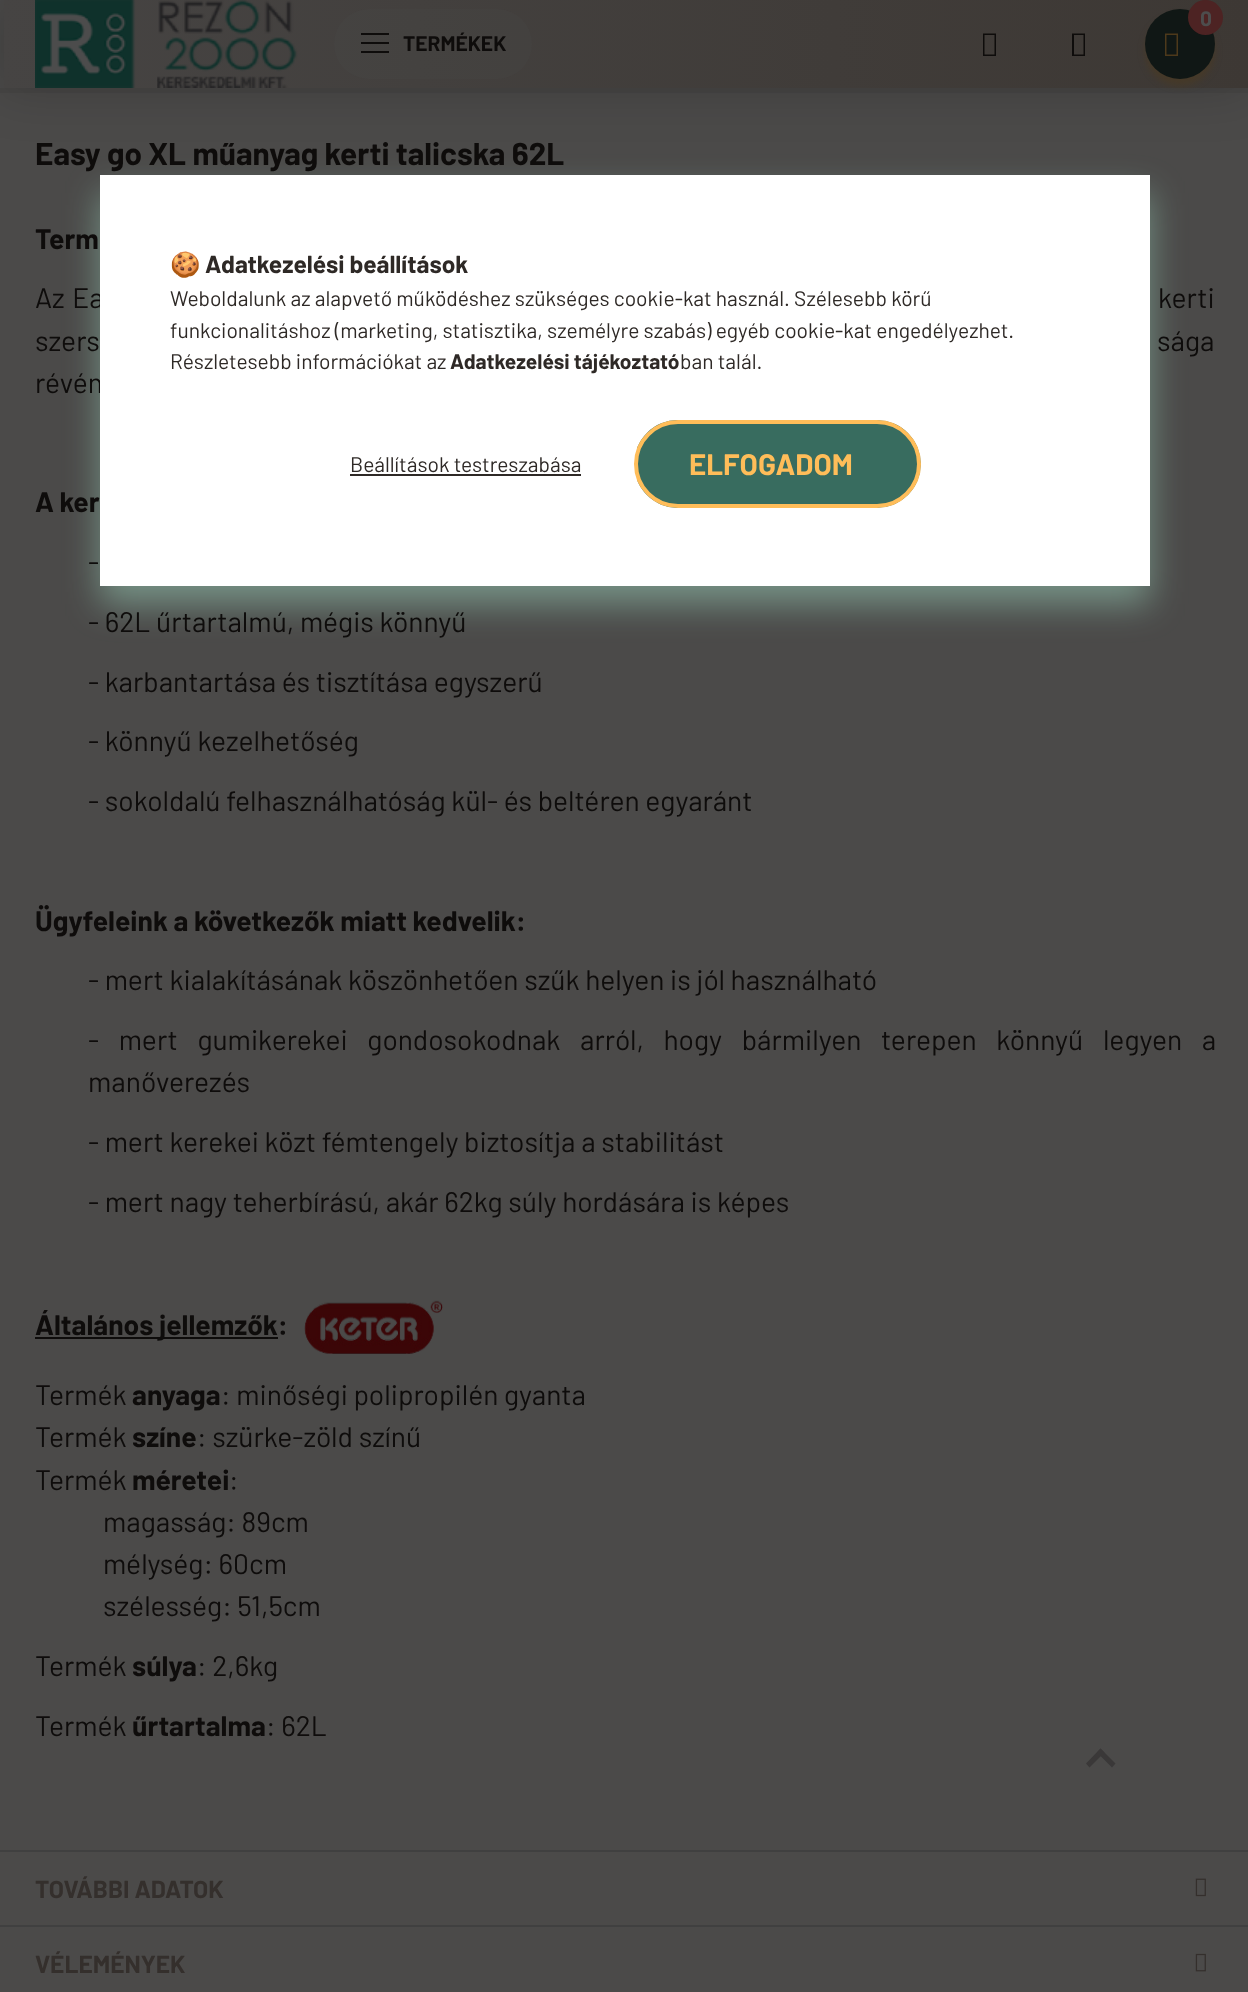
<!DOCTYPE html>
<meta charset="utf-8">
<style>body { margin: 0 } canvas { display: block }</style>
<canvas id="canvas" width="1248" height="1992"></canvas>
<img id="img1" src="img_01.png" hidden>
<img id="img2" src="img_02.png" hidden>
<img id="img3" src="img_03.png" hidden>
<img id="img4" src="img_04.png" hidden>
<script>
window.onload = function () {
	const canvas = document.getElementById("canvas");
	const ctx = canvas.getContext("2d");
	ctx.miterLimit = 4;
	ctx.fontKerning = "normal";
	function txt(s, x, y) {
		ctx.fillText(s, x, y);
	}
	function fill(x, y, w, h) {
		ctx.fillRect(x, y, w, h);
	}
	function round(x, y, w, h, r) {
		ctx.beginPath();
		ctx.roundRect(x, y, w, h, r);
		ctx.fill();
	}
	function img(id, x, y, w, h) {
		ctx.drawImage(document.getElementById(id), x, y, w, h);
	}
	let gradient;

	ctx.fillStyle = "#4B4A49";
	fill(0, 0, 1248, 1992);
	ctx.fillStyle = "#474645";
	fill(0, 88, 1248, 5);
	ctx.fillStyle = "rgba(0, 0, 0, 0.2)";
	ctx.filter = "blur(26px)";
	ctx.beginPath();
	ctx.rect(0, 0, 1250, 88);
	ctx.fill();
	ctx.filter = "none";
	gradient = ctx.createLinearGradient(0, 997, 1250, 997);
	gradient.addColorStop(0, "#464443");
	gradient.addColorStop(1, "#3D3834");
	ctx.fillStyle = gradient;
	fill(4, 0, 1244, 88);
	ctx.fillStyle = "rgba(77, 57, 27, 0.5)";
	ctx.filter = "blur(3.5px)";
	ctx.beginPath();
	ctx.roundRect(1145, 16, 70, 70, 35);
	ctx.fill();
	ctx.filter = "none";
	ctx.fillStyle = "#101715";
	ctx.beginPath();
	ctx.arc(1180, 44, 35, 0, Math.PI * 2);
	ctx.fill();
	ctx.fillStyle = "#4D2323";
	ctx.beginPath();
	ctx.arc(1205.5, 17.5, 17.5, 0, Math.PI * 2);
	ctx.fill();
	ctx.fillStyle = "#4D391B";
	ctx.beginPath();
	ctx.moveTo(1165, 56);
	ctx.lineTo(1165, 33.5);
	ctx.lineTo(1178, 33.5);
	ctx.lineTo(1178, 56);
	ctx.closePath();
	ctx.moveTo(1166.5, 54.5);
	ctx.lineTo(1176.5, 54.5);
	ctx.lineTo(1176.5, 35);
	ctx.lineTo(1166.5, 35);
	ctx.closePath();
	ctx.fill();
	ctx.fillStyle = "#0E0C0B";
	ctx.beginPath();
	ctx.moveTo(983, 56);
	ctx.lineTo(983, 33.5);
	ctx.lineTo(996, 33.5);
	ctx.lineTo(996, 56);
	ctx.closePath();
	ctx.moveTo(984.5, 54.5);
	ctx.lineTo(994.5, 54.5);
	ctx.lineTo(994.5, 35);
	ctx.lineTo(984.5, 35);
	ctx.closePath();
	ctx.fill();
	ctx.beginPath();
	ctx.moveTo(1072, 56);
	ctx.lineTo(1072, 33.5);
	ctx.lineTo(1085, 33.5);
	ctx.lineTo(1085, 56);
	ctx.closePath();
	ctx.moveTo(1074, 54.5);
	ctx.lineTo(1083.5, 54.5);
	ctx.lineTo(1083.5, 35);
	ctx.lineTo(1074, 35);
	ctx.closePath();
	ctx.fill();
	img("img1", 35, 0, 263, 88);
	ctx.fillStyle = "rgba(77, 77, 77, 0.2)";
	round(334, 9, 198, 70, 35);
	ctx.fillStyle = "#0E0C0B";
	fill(361, 33, 28, 2);
	fill(361, 42, 28, 2);
	fill(361, 51, 28, 2);
	fill(35, 1337, 243, 2);
	img("img2", 304, 1300, 139, 54);
	ctx.fillStyle = "#404040";
	fill(0, 1850, 1248, 2);
	img("img3", 1195, 1878, 11, 19);
	fill(0, 1925, 1248, 2);
	img("img4", 1195, 1953, 11, 19);
	ctx.fillStyle = "rgba(183, 255, 226, 0.4)";
	ctx.filter = "blur(17.5px)";
	ctx.beginPath();
	ctx.rect(100, 193, 1050, 411);
	ctx.fill();
	ctx.filter = "none";
	ctx.fillStyle = "#3A3838";
	ctx.beginPath();
	ctx.moveTo(1112, 1767.5);
	ctx.lineTo(1097, 1752.5);
	ctx.lineTo(1100.5, 1748.5);
	ctx.lineTo(1115.5, 1763.5);
	ctx.closePath();
	ctx.fill();
	ctx.beginPath();
	ctx.moveTo(1086, 1763.5);
	ctx.lineTo(1100.5, 1748.5);
	ctx.lineTo(1104.5, 1752.5);
	ctx.lineTo(1089.5, 1767.5);
	ctx.closePath();
	ctx.fill();
	ctx.font = "bold 21px Barlow";
	ctx.fillStyle = "#4D4D4D";
	txt("0", 1200, 26);
	ctx.fillStyle = "#0E0C0B";
	txt("TERMÉKEK", 403, 51);
	ctx.font = "bold 31.5px Barlow";
	txt("Easy go XL műanyag kerti talicska 62L", 35, 165);
	ctx.font = "bold 28.2px Barlow";
	txt("Term", 35, 249);
	ctx.wordSpacing = "2px";
	ctx.font = "28.2px Barlow";
	txt("Az Ea", 35, 308);
	txt("kerti", 1158, 308);
	ctx.wordSpacing = "3px";
	txt("szers", 35, 351);
	txt("sága", 1157, 351);
	ctx.wordSpacing = "0px";
	txt("révén", 35, 393);
	ctx.font = "bold 28.2px Barlow";
	txt("A ker", 35, 512);
	ctx.font = "28.2px Barlow";
	txt("-", 88, 572);
	txt("- 62L űrtartalmú, mégis könnyű", 88, 632);
	txt("- karbantartása és tisztítása egyszerű", 88, 692);
	txt("- könnyű kezelhetőség", 88, 751);
	txt("- sokoldalú felhasználhatóság kül- és beltéren egyaránt", 88, 811);
	ctx.font = "bold 28.2px Barlow";
	txt("Ügyfeleink a következők miatt kedvelik:", 35, 931);
	ctx.font = "28.2px Barlow";
	txt("- mert kialakításának köszönhetően szűk helyen is jól használható", 88, 990);
	ctx.wordSpacing = "14px";
	txt("- mert gumikerekei gondosokodnak arról, hogy bármilyen terepen könnyű legyen a", 88, 1050);
	ctx.wordSpacing = "0px";
	txt("manőverezés", 88, 1092);
	txt("- mert kerekei közt fémtengely biztosítja a stabilitást", 88, 1152);
	txt("- mert nagy teherbírású, akár 62kg súly hordására is képes", 88, 1212);
	ctx.font = "bold 28.2px Barlow";
	txt("Általános jellemzők:", 35, 1335);
	ctx.font = "28.2px Barlow";
	txt("Termék", 35, 1405);
	ctx.font = "bold 28.2px Barlow";
	txt("anyaga", 132, 1405);
	ctx.font = "28.2px Barlow";
	txt(": minőségi polipropilén gyanta", 221, 1405);
	txt("Termék", 35, 1447);
	ctx.font = "bold 28.2px Barlow";
	txt("színe", 132, 1447);
	ctx.font = "28.2px Barlow";
	txt(": szürke-zöld színű", 197, 1447);
	txt("Termék", 35, 1490);
	ctx.font = "bold 28.2px Barlow";
	txt("méretei", 132, 1490);
	ctx.font = "28.2px Barlow";
	txt(":", 229, 1490);
	txt("magasság: 89cm", 103, 1532);
	txt("mélység: 60cm", 103, 1574);
	txt("szélesség: 51,5cm", 103, 1616);
	txt("Termék", 35, 1676);
	ctx.font = "bold 28.2px Barlow";
	txt("súlya", 132, 1676);
	ctx.font = "28.2px Barlow";
	txt(": 2,6kg", 197, 1676);
	txt("Termék", 35, 1736);
	ctx.font = "bold 28.2px Barlow";
	txt("űrtartalma", 132, 1736);
	ctx.font = "28.2px Barlow";
	txt(": 62L", 266, 1736);
	ctx.font = "bold 24.5px Barlow";
	ctx.fillStyle = "#342F2C";
	txt("TOVÁBBI ADATOK", 35, 1898);
	txt("VÉLEMÉNYEK", 35, 1973);
	ctx.fillStyle = "#FFFFFF";
	fill(100, 175, 1050, 411);
	ctx.font = "bold 24.5px Noto Color Emoji";
	ctx.fillStyle = "#2E2926";
	txt("🍪", 170, 273);
	ctx.font = "bold 24.5px Barlow";
	txt("Adatkezelési beállítások", 205, 273);
	ctx.font = "21px Barlow";
	txt("Weboldalunk az alapvető működéshez szükséges cookie-kat használ. Szélesebb körű", 170, 306);
	txt("funkcionalitáshoz (marketing, statisztika, személyre szabás) egyéb cookie-kat engedélyezhet.", 170, 338);
	txt("Részletesebb információkat az", 170, 369);
	ctx.font = "bold 21px Barlow";
	txt("Adatkezelési tájékoztató", 450, 369);
	ctx.font = "21px Barlow";
	txt("ban talál.", 680, 369);
	txt("Beállítások testreszabása", 350, 472);
	fill(350, 474, 231, 2);
	ctx.save();
	ctx.beginPath();
	ctx.roundRect(634, 420, 287, 88, 44);
	ctx.clip();
	gradient = ctx.createLinearGradient(637, 464, 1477, 464);
	gradient.addColorStop(0.33, "#386C5F");
	gradient.addColorStop(0.67, "#2E2926");
	ctx.fillStyle = gradient;
	ctx.beginPath();
	ctx.roundRect(637, 420, 284, 88, [0, 44, 44, 0]);
	ctx.fill();
	ctx.restore();
	ctx.beginPath();
	ctx.roundRect(636, 422, 283, 84, 42);
	ctx.strokeStyle = "#FFBD59";
	ctx.lineWidth = 4;
	ctx.stroke();
	ctx.font = "bold 29.5px Barlow";
	ctx.fillStyle = "#FFBD59";
	txt("ELFOGADOM", 689, 475);
};
</script>
